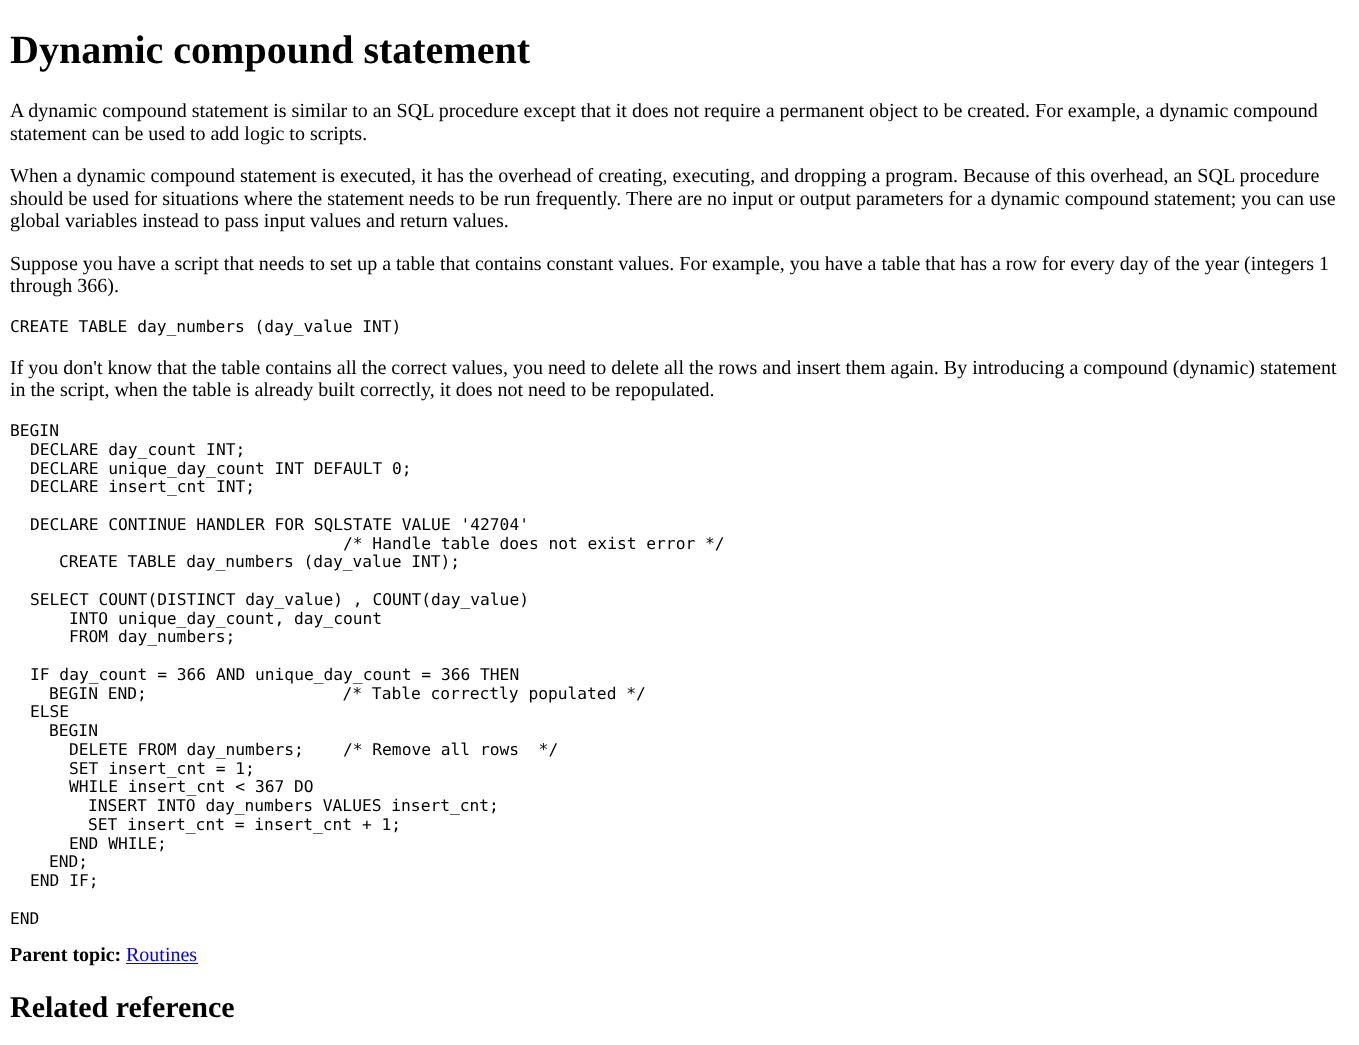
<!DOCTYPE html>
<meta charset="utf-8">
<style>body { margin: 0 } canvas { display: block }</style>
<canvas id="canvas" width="1359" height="1045"></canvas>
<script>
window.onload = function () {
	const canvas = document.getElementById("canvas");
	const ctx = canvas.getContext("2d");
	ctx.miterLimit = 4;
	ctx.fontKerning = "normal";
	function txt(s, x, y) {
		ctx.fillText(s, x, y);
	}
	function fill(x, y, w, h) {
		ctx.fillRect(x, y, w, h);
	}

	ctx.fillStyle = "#FFFFFF";
	fill(0, 0, 1359, 1045);
	ctx.fillStyle = "#0000EE";
	fill(126, 963, 72, 1);
	ctx.font = "bold 40px Liberation Serif";
	ctx.fillStyle = "#000000";
	txt("Dynamic compound statement", 10, 63);
	ctx.font = "20px Liberation Serif";
	txt("A dynamic compound statement is similar to an SQL procedure except that it does not require a permanent object to be created. For example, a dynamic compound", 10, 117);
	txt("statement can be used to add logic to scripts.", 10, 140);
	txt("When a dynamic compound statement is executed, it has the overhead of creating, executing, and dropping a program. Because of this overhead, an SQL procedure", 10, 182);
	txt("should be used for situations where the statement needs to be run frequently. There are no input or output parameters for a dynamic compound statement; you can use", 10, 205);
	txt("global variables instead to pass input values and return values.", 10, 227);
	txt("Suppose you have a script that needs to set up a table that contains constant values. For example, you have a table that has a row for every day of the year (integers 1", 10, 270);
	txt("through 366).", 10, 292);
	ctx.font = "16.25px DejaVu Sans Mono";
	txt("CREATE TABLE day_numbers (day_value INT)", 10, 332);
	ctx.font = "20px Liberation Serif";
	txt("If you don't know that the table contains all the correct values, you need to delete all the rows and insert them again. By introducing a compound (dynamic) statement", 10, 374);
	txt("in the script, when the table is already built correctly, it does not need to be repopulated.", 10, 396);
	ctx.font = "16.25px DejaVu Sans Mono";
	txt("BEGIN", 10, 436);
	txt("DECLARE day_count INT;", 30, 455);
	txt("DECLARE unique_day_count INT DEFAULT 0;", 30, 474);
	txt("DECLARE insert_cnt INT;", 30, 492);
	txt("DECLARE CONTINUE HANDLER FOR SQLSTATE VALUE '42704'", 30, 530);
	txt("/* Handle table does not exist error */", 343, 549);
	txt("CREATE TABLE day_numbers (day_value INT);", 59, 567);
	txt("SELECT COUNT(DISTINCT day_value) , COUNT(day_value)", 30, 605);
	txt("INTO unique_day_count, day_count", 69, 624);
	txt("FROM day_numbers;", 69, 642);
	txt("IF day_count = 366 AND unique_day_count = 366 THEN", 30, 680);
	txt("BEGIN END;                    /* Table correctly populated */", 49, 699);
	txt("ELSE", 30, 717);
	txt("BEGIN", 49, 736);
	txt("DELETE FROM day_numbers;    /* Remove all rows  */", 69, 755);
	txt("SET insert_cnt = 1;", 69, 774);
	txt("WHILE insert_cnt < 367 DO", 69, 792);
	txt("INSERT INTO day_numbers VALUES insert_cnt;", 88, 811);
	txt("SET insert_cnt = insert_cnt + 1;", 88, 830);
	txt("END WHILE;", 69, 849);
	txt("END;", 49, 867);
	txt("END IF;", 30, 886);
	txt("END", 10, 924);
	ctx.font = "bold 20px Liberation Serif";
	txt("Parent topic:", 10, 961);
	ctx.font = "20px Liberation Serif";
	ctx.fillStyle = "#0000EE";
	txt("Routines", 126, 961);
	ctx.font = "bold 30px Liberation Serif";
	ctx.fillStyle = "#000000";
	txt("Related reference", 10, 1017);
};
</script>
